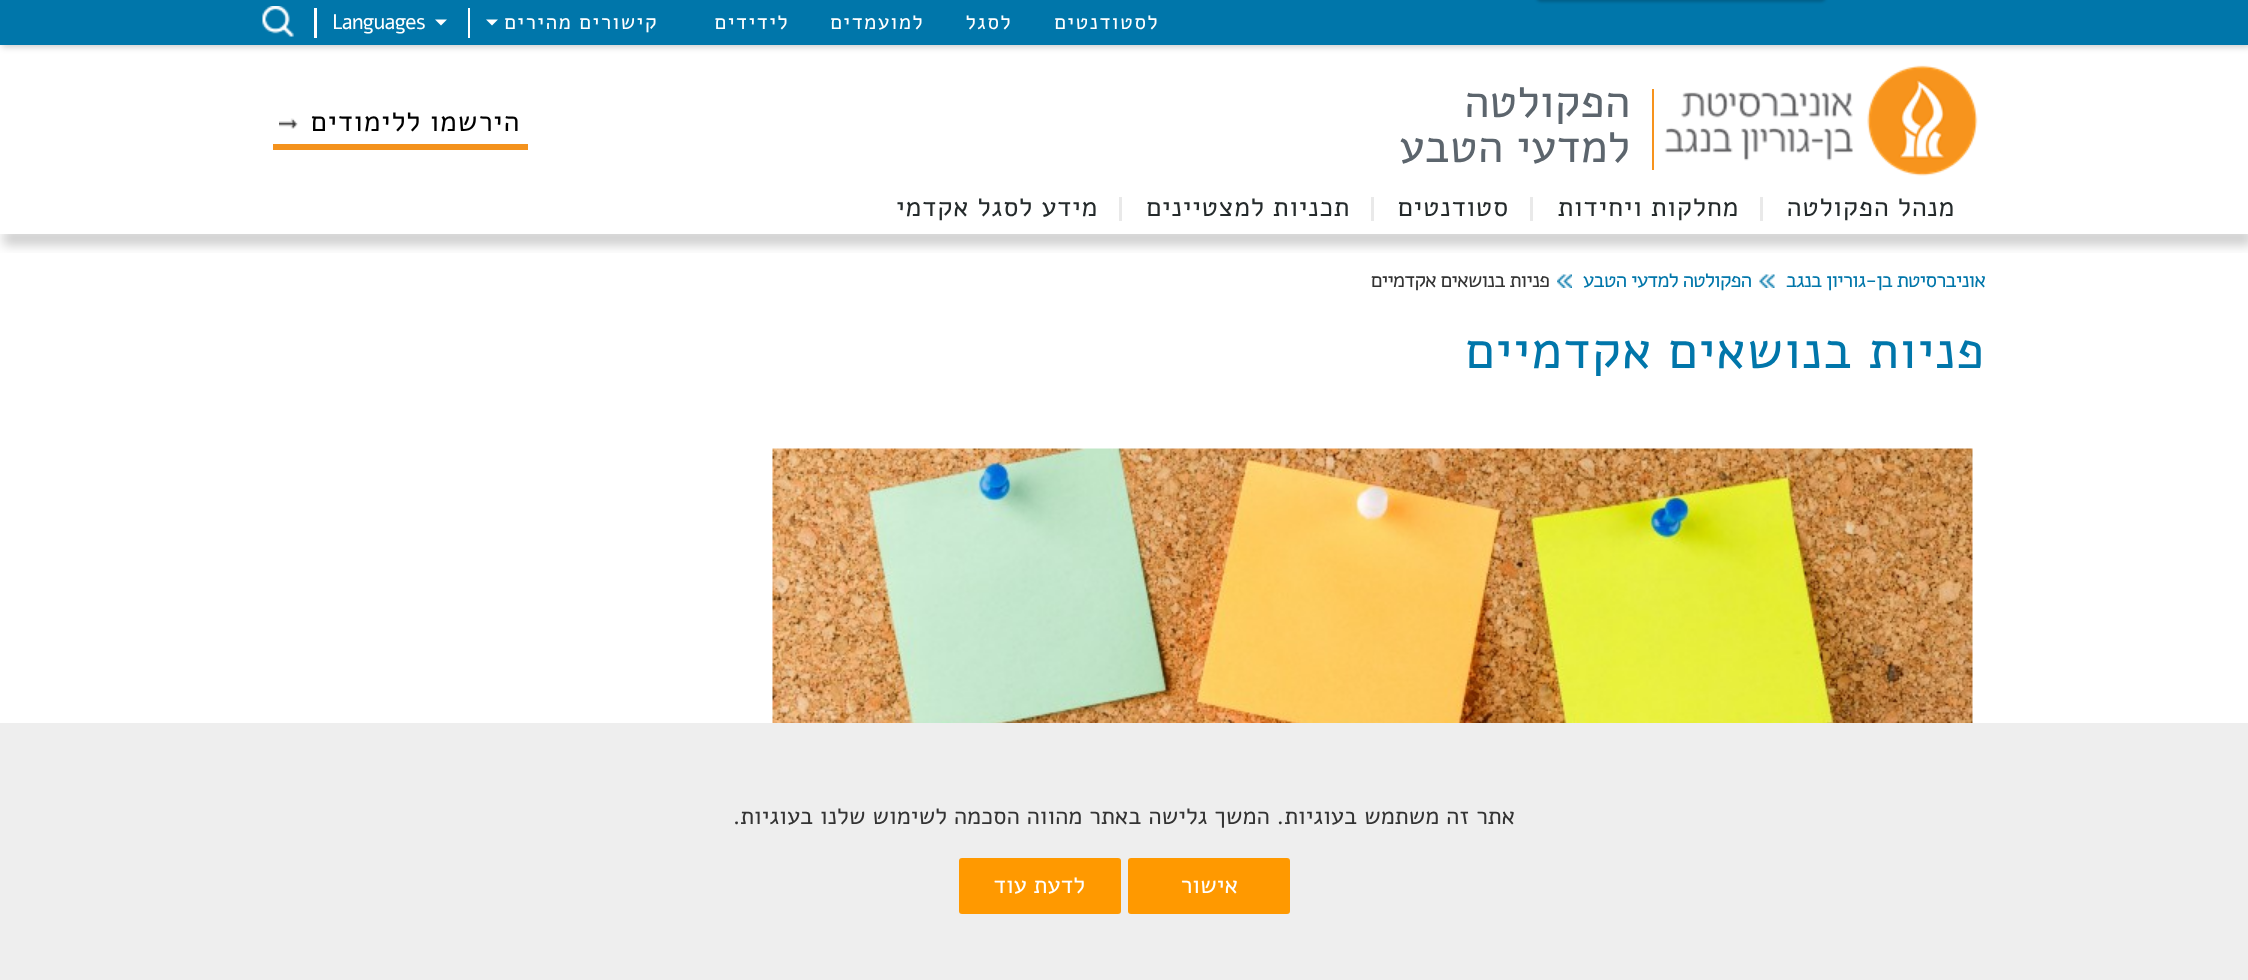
<!DOCTYPE html>
<meta charset="utf-8">
<style>body { margin: 0 } canvas { display: block }</style>
<canvas id="canvas" width="2248" height="980"></canvas>
<img id="img1" src="img_01.png" hidden>
<img id="img2" src="img_02.png" hidden>
<img id="img3" src="img_03.png" hidden>
<img id="img4" src="img_04.png" hidden>
<img id="img5" src="img_05.png" hidden>
<img id="img6" src="img_06.png" hidden>
<script>
window.onload = function () {
	const canvas = document.getElementById("canvas");
	const ctx = canvas.getContext("2d");
	ctx.miterLimit = 4;
	ctx.fontKerning = "normal";
	function txt(s, x, y) {
		ctx.fillText(s, x, y);
	}
	function fill(x, y, w, h) {
		ctx.fillRect(x, y, w, h);
	}
	function round(x, y, w, h, r) {
		ctx.beginPath();
		ctx.roundRect(x, y, w, h, r);
		ctx.fill();
	}
	function img(id, x, y, w, h) {
		ctx.drawImage(document.getElementById(id), x, y, w, h);
	}

	ctx.fillStyle = "#FFFFFF";
	fill(0, 0, 2248, 980);
	ctx.fillStyle = "rgba(0, 0, 0, 0.2)";
	ctx.filter = "blur(3px)";
	ctx.beginPath();
	ctx.rect(2, 2, 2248, 45);
	ctx.fill();
	ctx.filter = "none";
	ctx.fillStyle = "#0076AA";
	fill(0, 0, 2248, 45);
	ctx.fillStyle = "rgba(0, 0, 0, 0.2)";
	ctx.filter = "blur(1.5px)";
	ctx.beginPath();
	ctx.roundRect(1536, -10, 290, 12, 5);
	ctx.fill();
	ctx.filter = "none";
	ctx.fillStyle = "#FFFFFF";
	ctx.beginPath();
	ctx.moveTo(486, 19.5);
	ctx.lineTo(498, 19.5);
	ctx.lineTo(492, 25.5);
	ctx.closePath();
	ctx.fill();
	fill(468, 8, 2, 30);
	ctx.beginPath();
	ctx.moveTo(435, 19.5);
	ctx.lineTo(447, 19.5);
	ctx.lineTo(441, 25.5);
	ctx.closePath();
	ctx.fill();
	fill(314, 8, 3, 30);
	img("img1", 262, 6, 32, 31);
	img("img2", 1664, 65, 314, 111);
	ctx.fillStyle = "#F7931D";
	fill(1652, 89, 2, 81);
	img("img3", 279, 118, 19, 11);
	ctx.fillStyle = "#F4921D";
	fill(273, 144, 255, 6);
	ctx.fillStyle = "#E9E9E9";
	fill(1760, 197, 3, 24);
	fill(1530, 197, 3, 24);
	fill(1371, 197, 3, 24);
	fill(1119, 197, 3, 24);
	ctx.save();
	ctx.beginPath();
	ctx.rect(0, 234, 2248, 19);
	ctx.clip();
	ctx.fillStyle = "rgba(0, 0, 0, 0.2)";
	ctx.filter = "blur(6px)";
	ctx.beginPath();
	ctx.rect(3, 230, 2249, 15);
	ctx.fill();
	ctx.filter = "none";
	ctx.restore();
	img("img4", 1759, 274, 16, 14);
	img("img5", 1557, 274, 15, 14);
	img("img6", 772, 448, 1201, 275);
	ctx.fillStyle = "#EEEEEE";
	fill(0, 723, 2248, 257);
	ctx.fillStyle = "#FF9900";
	round(1128, 858, 162, 56, 3);
	round(959, 858, 162, 56, 3);
	ctx.letterSpacing = "1.4px";
	ctx.direction = "rtl";
	ctx.font = "21px Alef";
	ctx.fillStyle = "#FFFFFF";
	txt("לסטודנטים", 1159, 29);
	txt("לסגל", 1012, 29);
	txt("למועמדים", 924, 29);
	txt("לידידים", 789, 29);
	txt("קישורים מהירים", 658, 29);
	ctx.letterSpacing = "-0.75px";
	ctx.direction = "ltr";
	txt("Languages", 332, 29);
	ctx.letterSpacing = "0px";
	ctx.direction = "rtl";
	ctx.font = "46px Alef";
	ctx.fillStyle = "#5C656D";
	txt("הפקולטה", 1630, 117);
	txt("למדעי הטבע", 1630, 162);
	ctx.letterSpacing = "0.9px";
	ctx.font = "28.5px Alef";
	ctx.fillStyle = "#000000";
	txt("הירשמו ללימודים", 520, 131);
	ctx.letterSpacing = "0.75px";
	ctx.font = "27px Alef";
	ctx.fillStyle = "#252B2C";
	txt("מנהל הפקולטה", 1955, 216);
	txt("מחלקות ויחידות", 1739, 216);
	txt("סטודנטים", 1509, 216);
	txt("תכניות למצטיינים", 1350, 216);
	txt("מידע לסגל אקדמי", 1098, 216);
	ctx.letterSpacing = "-1.05px";
	ctx.font = "21px Alef";
	ctx.fillStyle = "#0076AA";
	txt("אוניברסיטת בן-גוריון בנגב", 1985, 287);
	txt("הפקולטה למדעי הטבע", 1751, 287);
	ctx.fillStyle = "#333333";
	txt("פניות בנושאים אקדמיים", 1549, 287);
	ctx.letterSpacing = "0.9px";
	ctx.font = "52.5px Alef";
	ctx.fillStyle = "#0076AA";
	txt("פניות בנושאים אקדמיים", 1985, 368);
	ctx.letterSpacing = "0px";
	ctx.font = "24px Alef";
	ctx.fillStyle = "#333333";
	txt("אתר זה משתמש בעוגיות. המשך גלישה באתר מהווה הסכמה לשימוש שלנו בעוגיות.", 1515, 824);
	ctx.fillStyle = "#FFFFFF";
	txt("אישור", 1238, 893);
	txt("לדעת עוד", 1085, 893);
};
</script>
